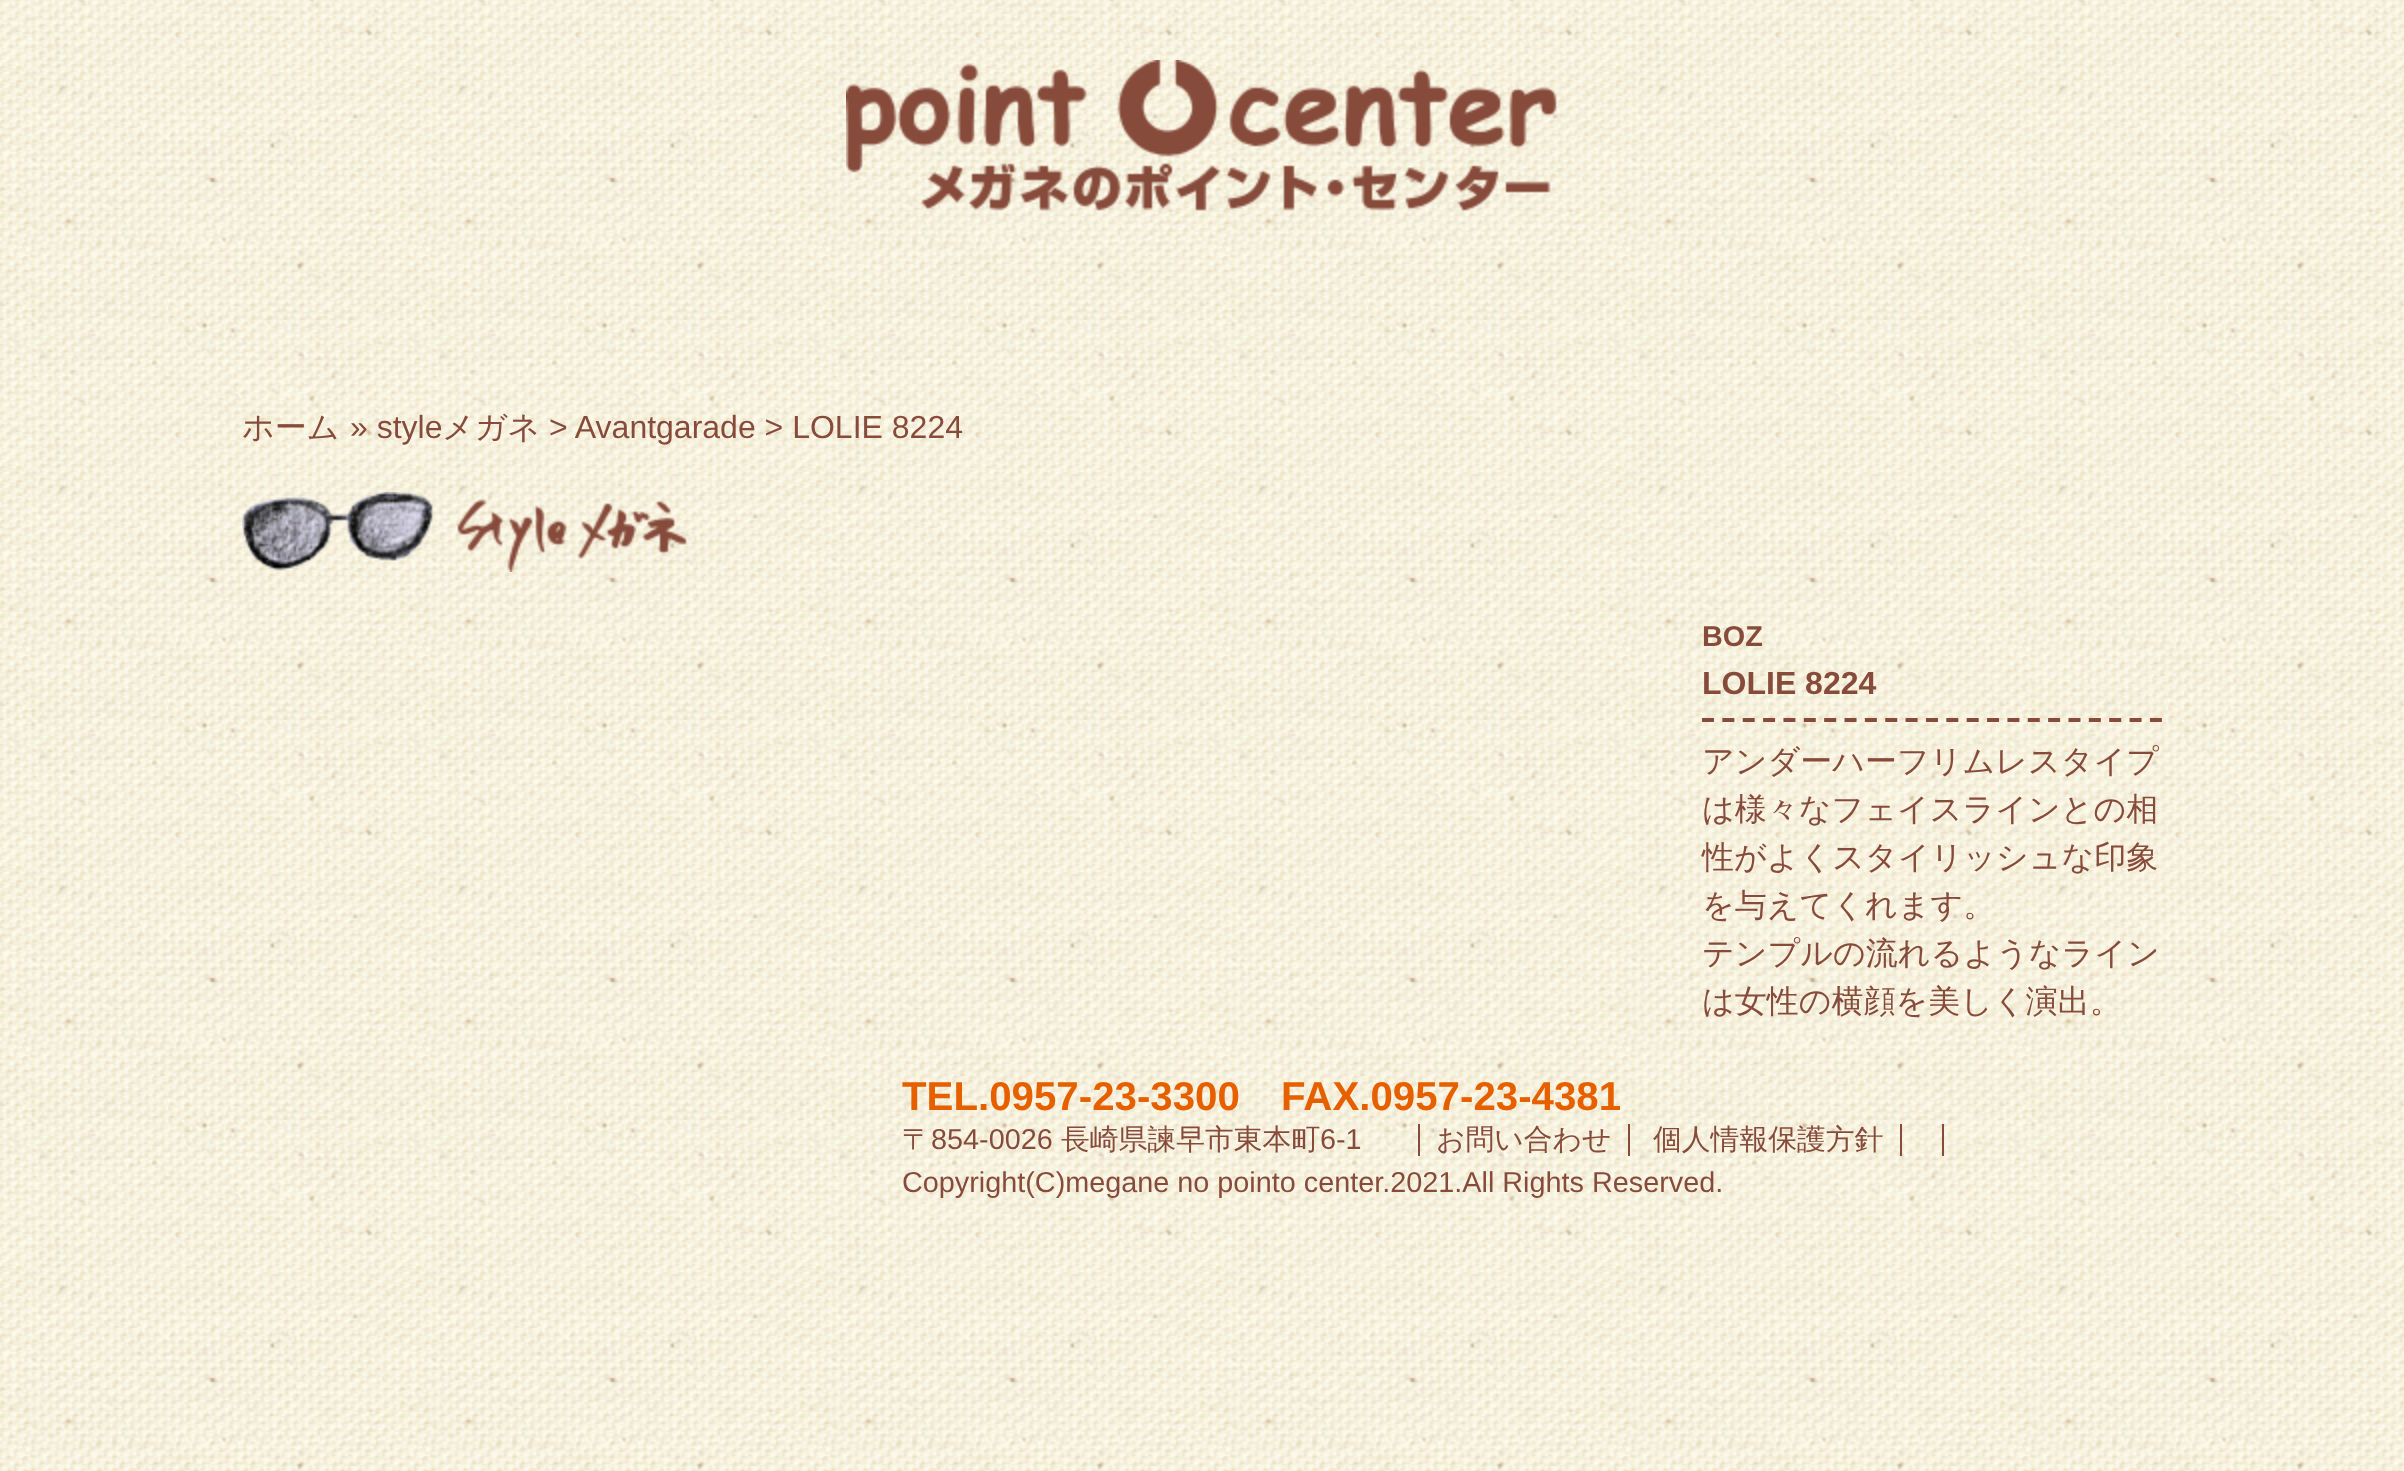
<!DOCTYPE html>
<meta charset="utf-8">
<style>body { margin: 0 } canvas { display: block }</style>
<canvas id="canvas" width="2404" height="1471"></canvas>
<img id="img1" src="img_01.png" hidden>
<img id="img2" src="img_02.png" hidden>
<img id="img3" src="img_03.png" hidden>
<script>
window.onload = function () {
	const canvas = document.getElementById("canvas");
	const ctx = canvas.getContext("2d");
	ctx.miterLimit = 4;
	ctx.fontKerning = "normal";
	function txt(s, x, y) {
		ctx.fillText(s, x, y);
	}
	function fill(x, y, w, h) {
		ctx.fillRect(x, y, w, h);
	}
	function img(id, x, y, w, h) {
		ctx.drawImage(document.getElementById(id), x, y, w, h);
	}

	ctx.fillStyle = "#FFFFFF";
	fill(0, 0, 2404, 1471);
	img("img1", 0, 0, 2404, 1471);
	img("img2", 846, 60, 711, 152);
	img("img3", 242, 492, 445, 80);
	ctx.beginPath();
	ctx.moveTo(1702, 720);
	ctx.lineTo(2162, 720);
	ctx.strokeStyle = "#874B3C";
	ctx.lineWidth = 4;
	ctx.setLineDash([12, 8.36]);
	ctx.stroke();
	ctx.fillStyle = "#874B3C";
	fill(1418, 1124, 2, 32);
	fill(1628, 1124, 2, 32);
	fill(1900, 1124, 2, 32);
	fill(1942, 1124, 2, 32);
	ctx.font = "500 32px WenQuanYi Zen Hei";
	txt("ホーム", 242, 438);
	ctx.font = "32px Liberation Sans";
	txt("» style", 350, 438);
	ctx.font = "500 32px WenQuanYi Zen Hei";
	txt("メガネ", 442, 438);
	ctx.font = "32px Liberation Sans";
	txt("> Avantgarade > LOLIE 8224", 549, 438);
	ctx.font = "bold 28.8px Liberation Sans";
	txt("BOZ", 1702, 646);
	ctx.font = "bold 32px Liberation Sans";
	txt("LOLIE 8224", 1702, 694);
	ctx.font = "500 32px WenQuanYi Zen Hei";
	txt("アンダーハーフリムレスタイプ", 1702, 772);
	txt("は様々なフェイスラインとの相", 1702, 820);
	txt("性がよくスタイリッシュな印象", 1702, 868);
	txt("を与えてくれます。", 1702, 916);
	txt("テンプルの流れるようなライン", 1702, 964);
	txt("は女性の横顔を美しく演出。", 1702, 1012);
	ctx.font = "bold 40.25px Liberation Sans";
	ctx.fillStyle = "#E65F00";
	txt("TEL.0957-23-3300", 902, 1110);
	txt("FAX.0957-23-4381", 1281, 1110);
	ctx.font = "500 28.8px WenQuanYi Zen Hei";
	ctx.fillStyle = "#874B3C";
	txt("〒", 902, 1149);
	ctx.font = "28.8px Liberation Sans";
	txt("854-0026", 931, 1149);
	ctx.font = "500 28.8px WenQuanYi Zen Hei";
	txt("長崎県諫早市東本町", 1061, 1149);
	ctx.font = "28.8px Liberation Sans";
	txt("6-1", 1320, 1149);
	ctx.font = "500 28.8px WenQuanYi Zen Hei";
	txt("お問い合わせ", 1436, 1149);
	txt("個人情報保護方針", 1653, 1149);
	ctx.font = "28.8px Liberation Sans";
	txt("Copyright(C)megane no pointo center.2021.All Rights Reserved.", 902, 1192);
};
</script>
